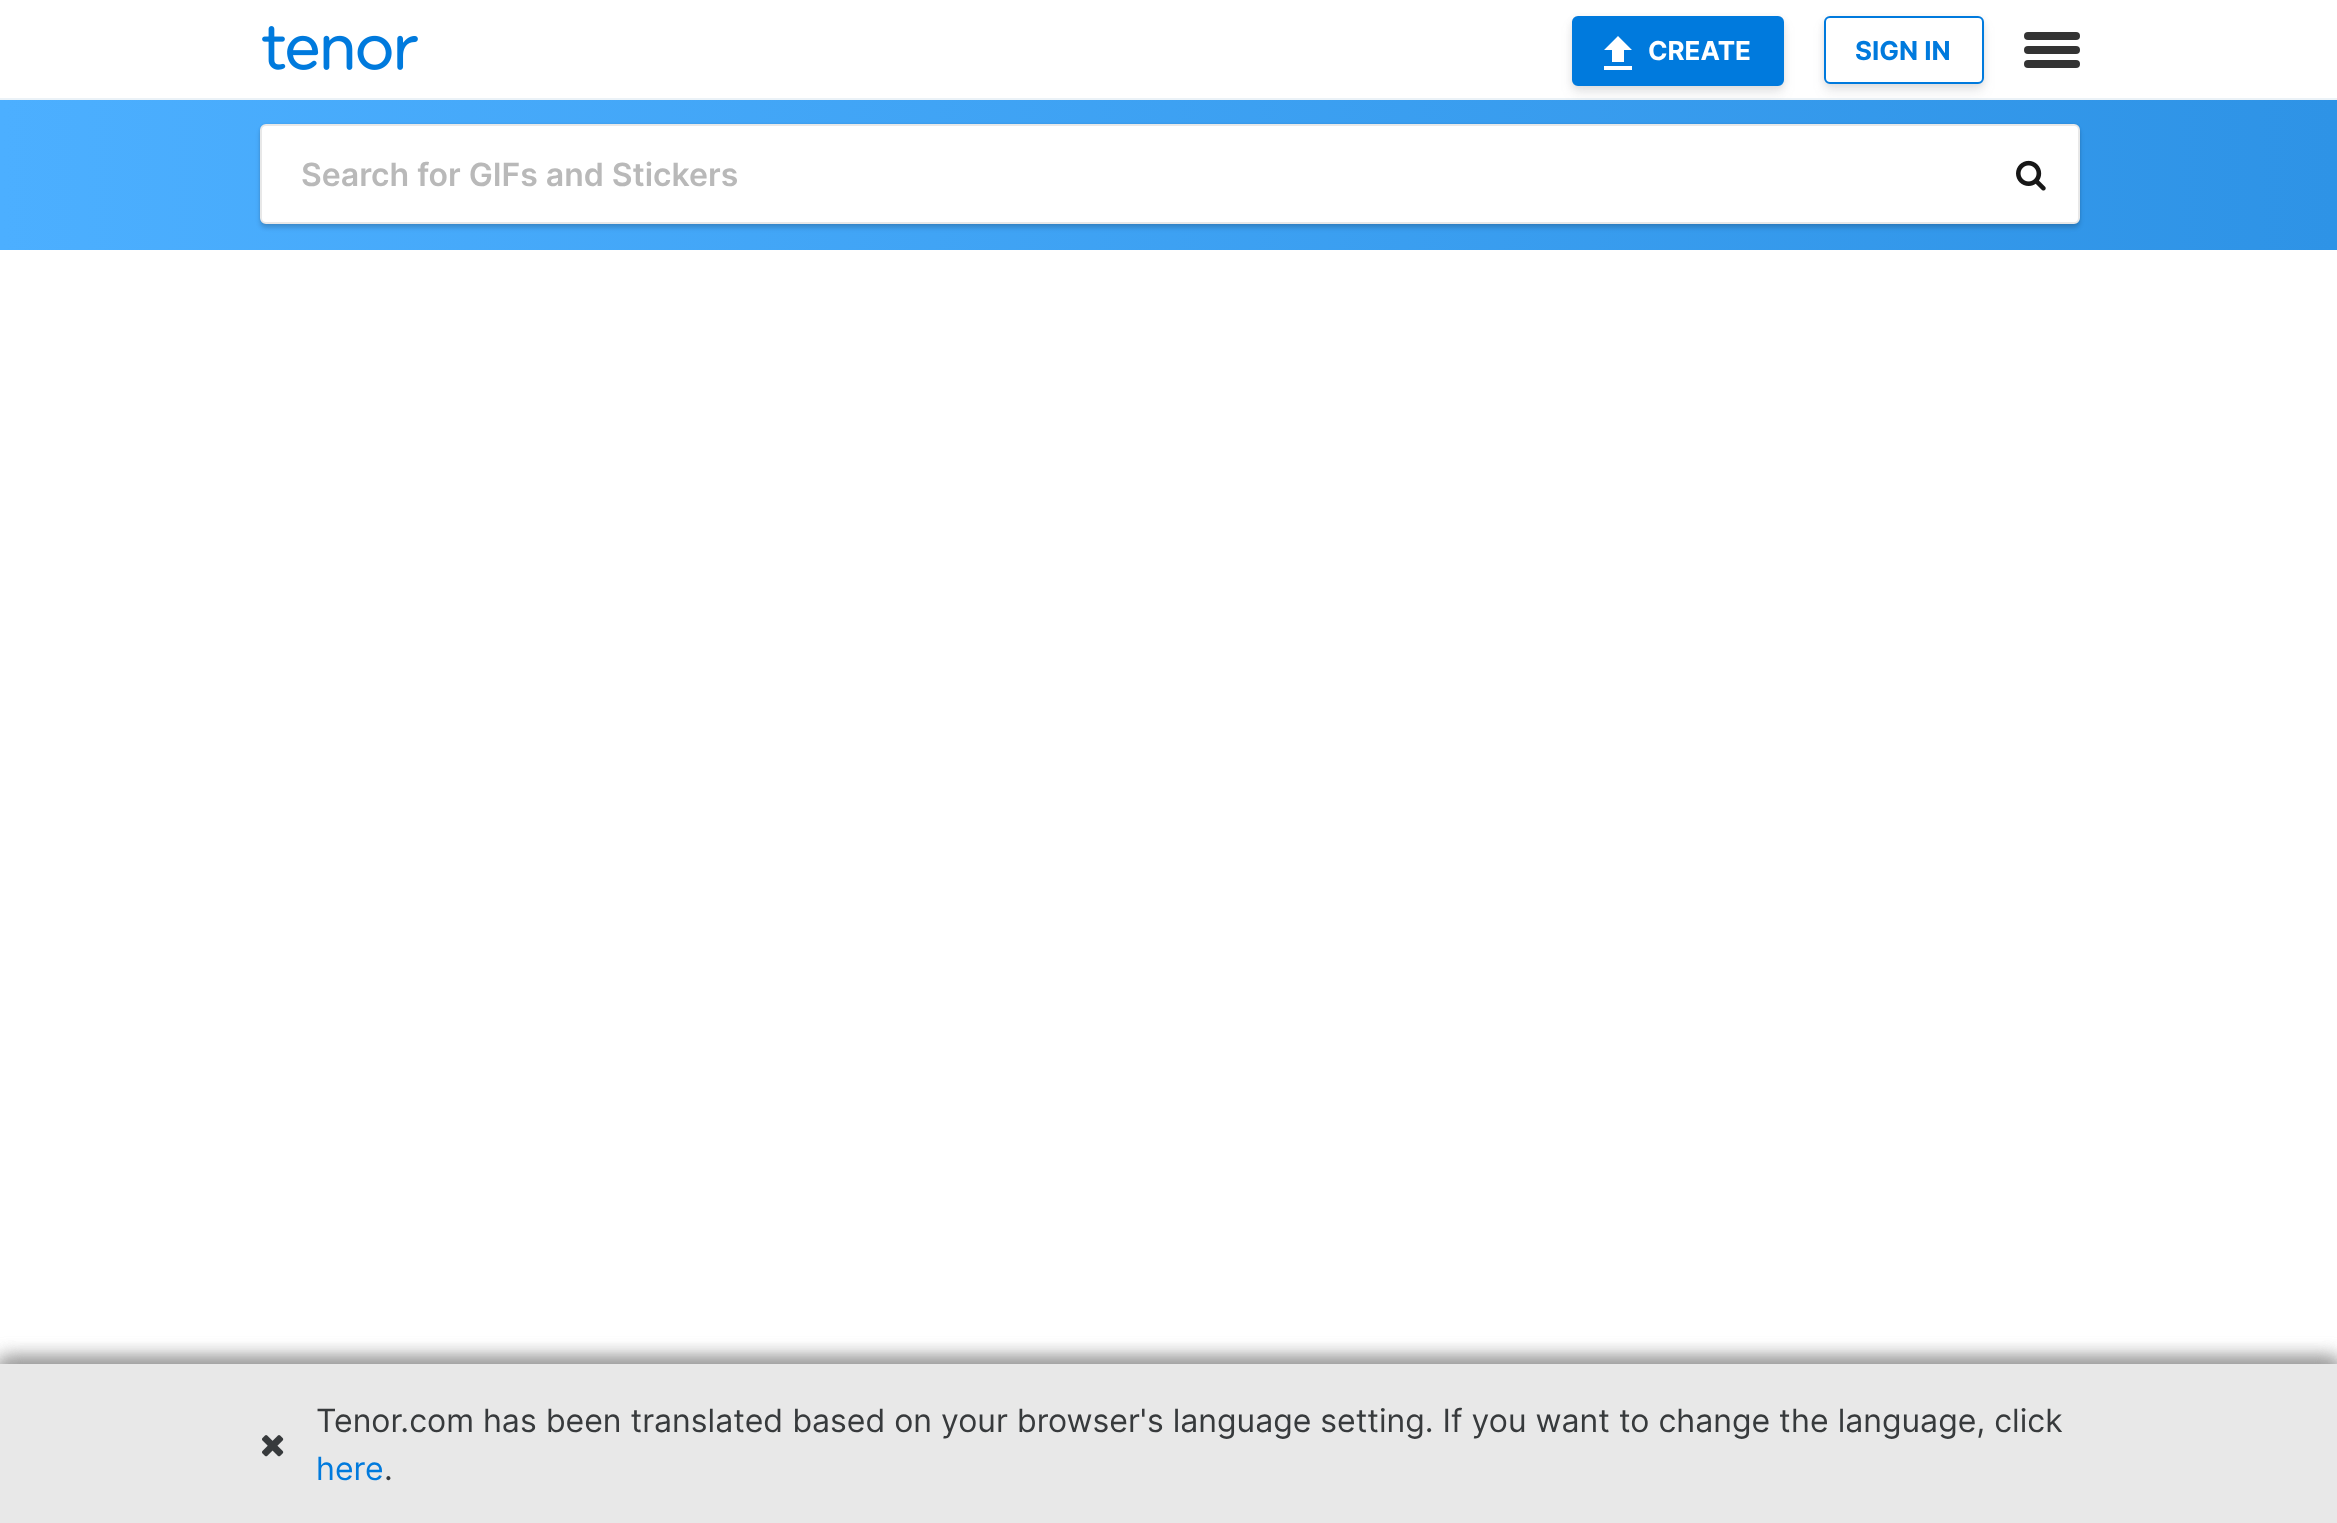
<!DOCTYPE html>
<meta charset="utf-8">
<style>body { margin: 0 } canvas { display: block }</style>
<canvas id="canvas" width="2337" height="1523"></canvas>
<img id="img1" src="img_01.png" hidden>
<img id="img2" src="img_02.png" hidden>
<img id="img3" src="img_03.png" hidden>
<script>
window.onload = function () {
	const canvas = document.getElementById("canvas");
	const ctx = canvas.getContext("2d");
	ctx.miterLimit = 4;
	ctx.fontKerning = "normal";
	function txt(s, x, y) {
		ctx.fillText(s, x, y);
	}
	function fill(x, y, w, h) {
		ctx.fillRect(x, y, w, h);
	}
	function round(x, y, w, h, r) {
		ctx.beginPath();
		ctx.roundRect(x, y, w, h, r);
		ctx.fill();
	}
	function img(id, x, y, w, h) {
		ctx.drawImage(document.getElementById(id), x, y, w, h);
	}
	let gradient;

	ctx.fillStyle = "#FFFFFF";
	fill(0, 0, 2337, 1523);
	ctx.fillStyle = "#EBF2F7";
	fill(0, 98, 2337, 2);
	img("img1", 262, 26, 156, 44);
	ctx.fillStyle = "rgba(83, 83, 92, 0.11)";
	ctx.filter = "blur(6px)";
	ctx.beginPath();
	ctx.roundRect(1572, 24, 212, 70, 6);
	ctx.fill();
	ctx.filter = "none";
	ctx.fillStyle = "rgba(0, 0, 0, 0.08)";
	ctx.filter = "blur(3px)";
	ctx.beginPath();
	ctx.roundRect(1572, 18, 212, 70, 6);
	ctx.fill();
	ctx.filter = "none";
	ctx.fillStyle = "#007ADD";
	ctx.beginPath();
	ctx.roundRect(1573, 17, 210, 68, 5);
	ctx.fill();
	ctx.strokeStyle = "#007ADD";
	ctx.lineWidth = 2;
	ctx.stroke();
	ctx.fillStyle = "#FFFFFF";
	ctx.beginPath();
	ctx.moveTo(1612, 62);
	ctx.lineTo(1624, 62);
	ctx.lineTo(1624, 50);
	ctx.lineTo(1632, 50);
	ctx.lineTo(1618, 36);
	ctx.lineTo(1604, 50);
	ctx.lineTo(1612, 50);
	ctx.closePath();
	ctx.moveTo(1604, 66);
	ctx.lineTo(1632, 66);
	ctx.lineTo(1632, 70);
	ctx.lineTo(1604, 70);
	ctx.closePath();
	ctx.fill();
	ctx.fillStyle = "rgba(83, 83, 92, 0.11)";
	ctx.filter = "blur(6px)";
	ctx.beginPath();
	ctx.roundRect(1824, 24, 160, 68, 6);
	ctx.fill();
	ctx.filter = "none";
	ctx.fillStyle = "rgba(0, 0, 0, 0.08)";
	ctx.filter = "blur(3px)";
	ctx.beginPath();
	ctx.roundRect(1824, 18, 160, 68, 6);
	ctx.fill();
	ctx.filter = "none";
	ctx.fillStyle = "#FFFFFF";
	ctx.beginPath();
	ctx.roundRect(1825, 17, 158, 66, 5);
	ctx.fill();
	ctx.stroke();
	ctx.fillStyle = "#333333";
	round(2024, 46, 56, 8, 4);
	round(2024, 32, 56, 8, 4);
	round(2024, 60, 56, 8, 4);
	gradient = ctx.createLinearGradient(0, 175, 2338, 175);
	gradient.addColorStop(0, "#4CAFFF");
	gradient.addColorStop(1, "#2E93E6");
	ctx.fillStyle = gradient;
	fill(0, 100, 2337, 150);
	ctx.fillStyle = "rgba(0, 0, 0, 0.08)";
	ctx.filter = "blur(1px)";
	ctx.beginPath();
	ctx.roundRect(260, 124, 1820, 100, 6);
	ctx.fill();
	ctx.filter = "none";
	ctx.fillStyle = "rgba(0, 0, 0, 0.16)";
	ctx.filter = "blur(2px)";
	ctx.beginPath();
	ctx.roundRect(260, 128, 1820, 100, 6);
	ctx.fill();
	ctx.filter = "none";
	ctx.fillStyle = "#FFFFFF";
	ctx.beginPath();
	ctx.roundRect(261, 125, 1818, 98, 5);
	ctx.fill();
	ctx.strokeStyle = "#E8E8E8";
	ctx.stroke();
	img("img2", 2016, 160, 30, 31);
	ctx.fillStyle = "#999999";
	ctx.filter = "blur(10px)";
	ctx.beginPath();
	ctx.rect(0, 1360, 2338, 160);
	ctx.fill();
	ctx.filter = "none";
	ctx.filter = "blur(10px)";
	ctx.beginPath();
	ctx.rect(0, 1360, 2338, 160);
	ctx.fill();
	ctx.filter = "none";
	ctx.fillStyle = "#E8E8E8";
	fill(0, 1364, 2337, 159);
	img("img3", 262, 1435, 22, 22);
	ctx.font = "bold 26px Inter";
	ctx.fillStyle = "#FFFFFF";
	txt("CREATE", 1648, 60);
	ctx.fillStyle = "#007ADD";
	txt("SIGN IN", 1855, 60);
	ctx.font = "600 32px Inter";
	ctx.fillStyle = "#B9B9B9";
	txt("Search for GIFs and Stickers", 301, 186);
	ctx.font = "32px Inter";
	ctx.fillStyle = "#373A3C";
	txt("Tenor.com has been translated based on your browser's language setting. If you want to change the language, click", 316, 1432);
	ctx.fillStyle = "#007ADD";
	txt("here", 316, 1480);
	ctx.fillStyle = "#373A3C";
	txt(".", 384, 1480);
};
</script>
